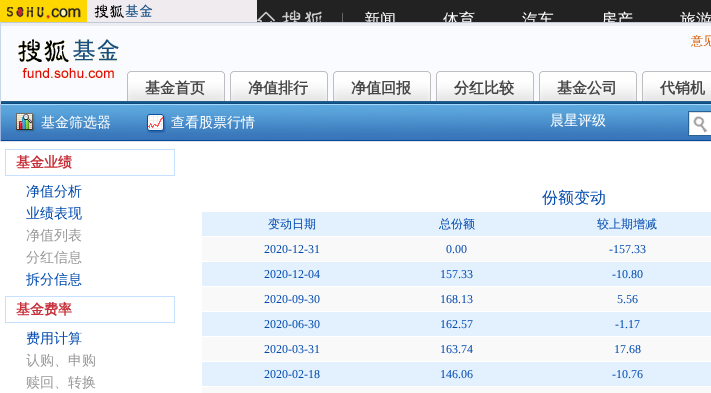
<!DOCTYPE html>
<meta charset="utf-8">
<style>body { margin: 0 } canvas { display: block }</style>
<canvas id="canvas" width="711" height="393"></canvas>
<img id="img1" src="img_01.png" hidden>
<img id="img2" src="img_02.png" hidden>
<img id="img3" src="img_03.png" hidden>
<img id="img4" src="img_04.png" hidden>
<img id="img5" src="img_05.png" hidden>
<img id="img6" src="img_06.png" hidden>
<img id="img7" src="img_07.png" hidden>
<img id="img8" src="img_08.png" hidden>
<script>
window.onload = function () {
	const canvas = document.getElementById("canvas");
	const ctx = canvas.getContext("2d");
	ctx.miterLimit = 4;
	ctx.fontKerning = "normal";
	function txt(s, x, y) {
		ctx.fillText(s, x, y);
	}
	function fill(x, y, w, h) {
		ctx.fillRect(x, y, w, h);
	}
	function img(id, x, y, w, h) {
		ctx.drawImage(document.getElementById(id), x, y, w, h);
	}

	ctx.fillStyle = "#FFFFFF";
	fill(0, 0, 711, 393);
	img("img1", 0, 0, 711, 22);
	ctx.fillStyle = "#FAFBFE";
	fill(1, 26, 710, 75);
	ctx.fillStyle = "#EAEDF2";
	fill(0, 23, 711, 3);
	ctx.fillStyle = "#C2C7D4";
	fill(0, 22, 711, 1);
	ctx.fillStyle = "#C8D6E5";
	fill(0, 22, 1, 82);
	img("img2", 18, 39, 101, 39);
	img("img3", 127, 71, 98, 30);
	img("img3", 230, 71, 98, 30);
	img("img3", 333, 71, 98, 30);
	img("img3", 436, 71, 98, 30);
	img("img3", 539, 71, 98, 30);
	img("img4", 642, 71, 69, 30);
	ctx.fillStyle = "#0B5C8C";
	fill(1, 102, 710, 1);
	ctx.fillStyle = "#2E5B8B";
	fill(1, 101, 710, 1);
	ctx.fillStyle = "#124879";
	fill(1, 103, 710, 1);
	img("img5", 1, 105, 710, 35);
	ctx.fillStyle = "#A1D8FF";
	fill(0, 104, 711, 1);
	ctx.fillStyle = "#05499A";
	fill(0, 140, 711, 1);
	ctx.fillStyle = "#9BB7DE";
	fill(0, 104, 1, 37);
	img("img6", 16, 113, 20, 19);
	img("img7", 146, 114, 20, 19);
	ctx.fillStyle = "#FFFFFF";
	fill(689, 134, 22, 1);
	ctx.strokeStyle = "#296296";
	ctx.strokeRect(688.5, 111.5, 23, 24);
	img("img8", 689, 112, 22, 22);
	ctx.fillStyle = "#DFE3E9";
	fill(0, 141, 711, 1);
	ctx.strokeStyle = "#C6E0FF";
	ctx.strokeRect(5.5, 149.5, 169, 26);
	ctx.strokeRect(5.5, 296.5, 169, 26);
	ctx.fillStyle = "#E3F1FF";
	fill(202, 212, 509, 24);
	ctx.fillStyle = "#F9F9F9";
	fill(202, 237, 509, 24);
	ctx.fillStyle = "#E3F1FF";
	fill(202, 262, 509, 24);
	ctx.fillStyle = "#F9F9F9";
	fill(202, 287, 509, 24);
	ctx.fillStyle = "#E3F1FF";
	fill(202, 312, 509, 24);
	ctx.fillStyle = "#F9F9F9";
	fill(202, 337, 509, 24);
	ctx.fillStyle = "#E3F1FF";
	fill(202, 362, 509, 24);
	ctx.fillStyle = "#F9F9F9";
	fill(202, 387, 509, 6);
	ctx.font = "500 12px WenQuanYi Zen Hei";
	ctx.fillStyle = "#D55800";
	txt("意见", 691, 45);
	ctx.font = "bold 15px WenQuanYi Zen Hei";
	ctx.fillStyle = "#464646";
	txt("基金首页", 145, 93);
	txt("净值排行", 248, 93);
	txt("净值回报", 351, 93);
	txt("分红比较", 454, 93);
	txt("基金公司", 557, 93);
	txt("代销机", 660, 93);
	ctx.font = "500 14px WenQuanYi Zen Hei";
	ctx.fillStyle = "#FFFFFF";
	txt("基金筛选器", 41, 127);
	txt("查看股票行情", 171, 127);
	txt("晨星评级", 550, 125);
	ctx.font = "bold 14px WenQuanYi Zen Hei";
	ctx.fillStyle = "#C73039";
	txt("基金业绩", 16, 167);
	ctx.font = "500 14px WenQuanYi Zen Hei";
	ctx.fillStyle = "#004AAE";
	txt("净值分析", 26, 196);
	txt("业绩表现", 26, 218);
	ctx.fillStyle = "#999999";
	txt("净值列表", 26, 240);
	txt("分红信息", 26, 262);
	ctx.fillStyle = "#004AAE";
	txt("拆分信息", 26, 284);
	ctx.font = "bold 14px WenQuanYi Zen Hei";
	ctx.fillStyle = "#C73039";
	txt("基金费率", 16, 314);
	ctx.font = "500 14px WenQuanYi Zen Hei";
	ctx.fillStyle = "#004AAE";
	txt("费用计算", 26, 343);
	ctx.fillStyle = "#999999";
	txt("认购、申购", 26, 365);
	txt("赎回、转换", 26, 387);
	ctx.font = "500 16px WenQuanYi Zen Hei";
	ctx.fillStyle = "#004AAE";
	txt("份额变动", 542, 203);
	ctx.font = "500 12px WenQuanYi Zen Hei";
	txt("变动日期", 268, 228);
	txt("总份额", 439, 228);
	txt("较上期增减", 597, 228);
	ctx.font = "12px Liberation Serif";
	txt("2020-12-31", 264, 253);
	txt("0.00", 446, 253);
	txt("-157.33", 609, 253);
	txt("2020-12-04", 264, 278);
	txt("157.33", 440, 278);
	txt("-10.80", 612, 278);
	txt("2020-09-30", 264, 303);
	txt("168.13", 440, 303);
	txt("5.56", 617, 303);
	txt("2020-06-30", 264, 328);
	txt("162.57", 440, 328);
	txt("-1.17", 615, 328);
	txt("2020-03-31", 264, 353);
	txt("163.74", 440, 353);
	txt("17.68", 614, 353);
	txt("2020-02-18", 264, 378);
	txt("146.06", 440, 378);
	txt("-10.76", 612, 378);
};
</script>
